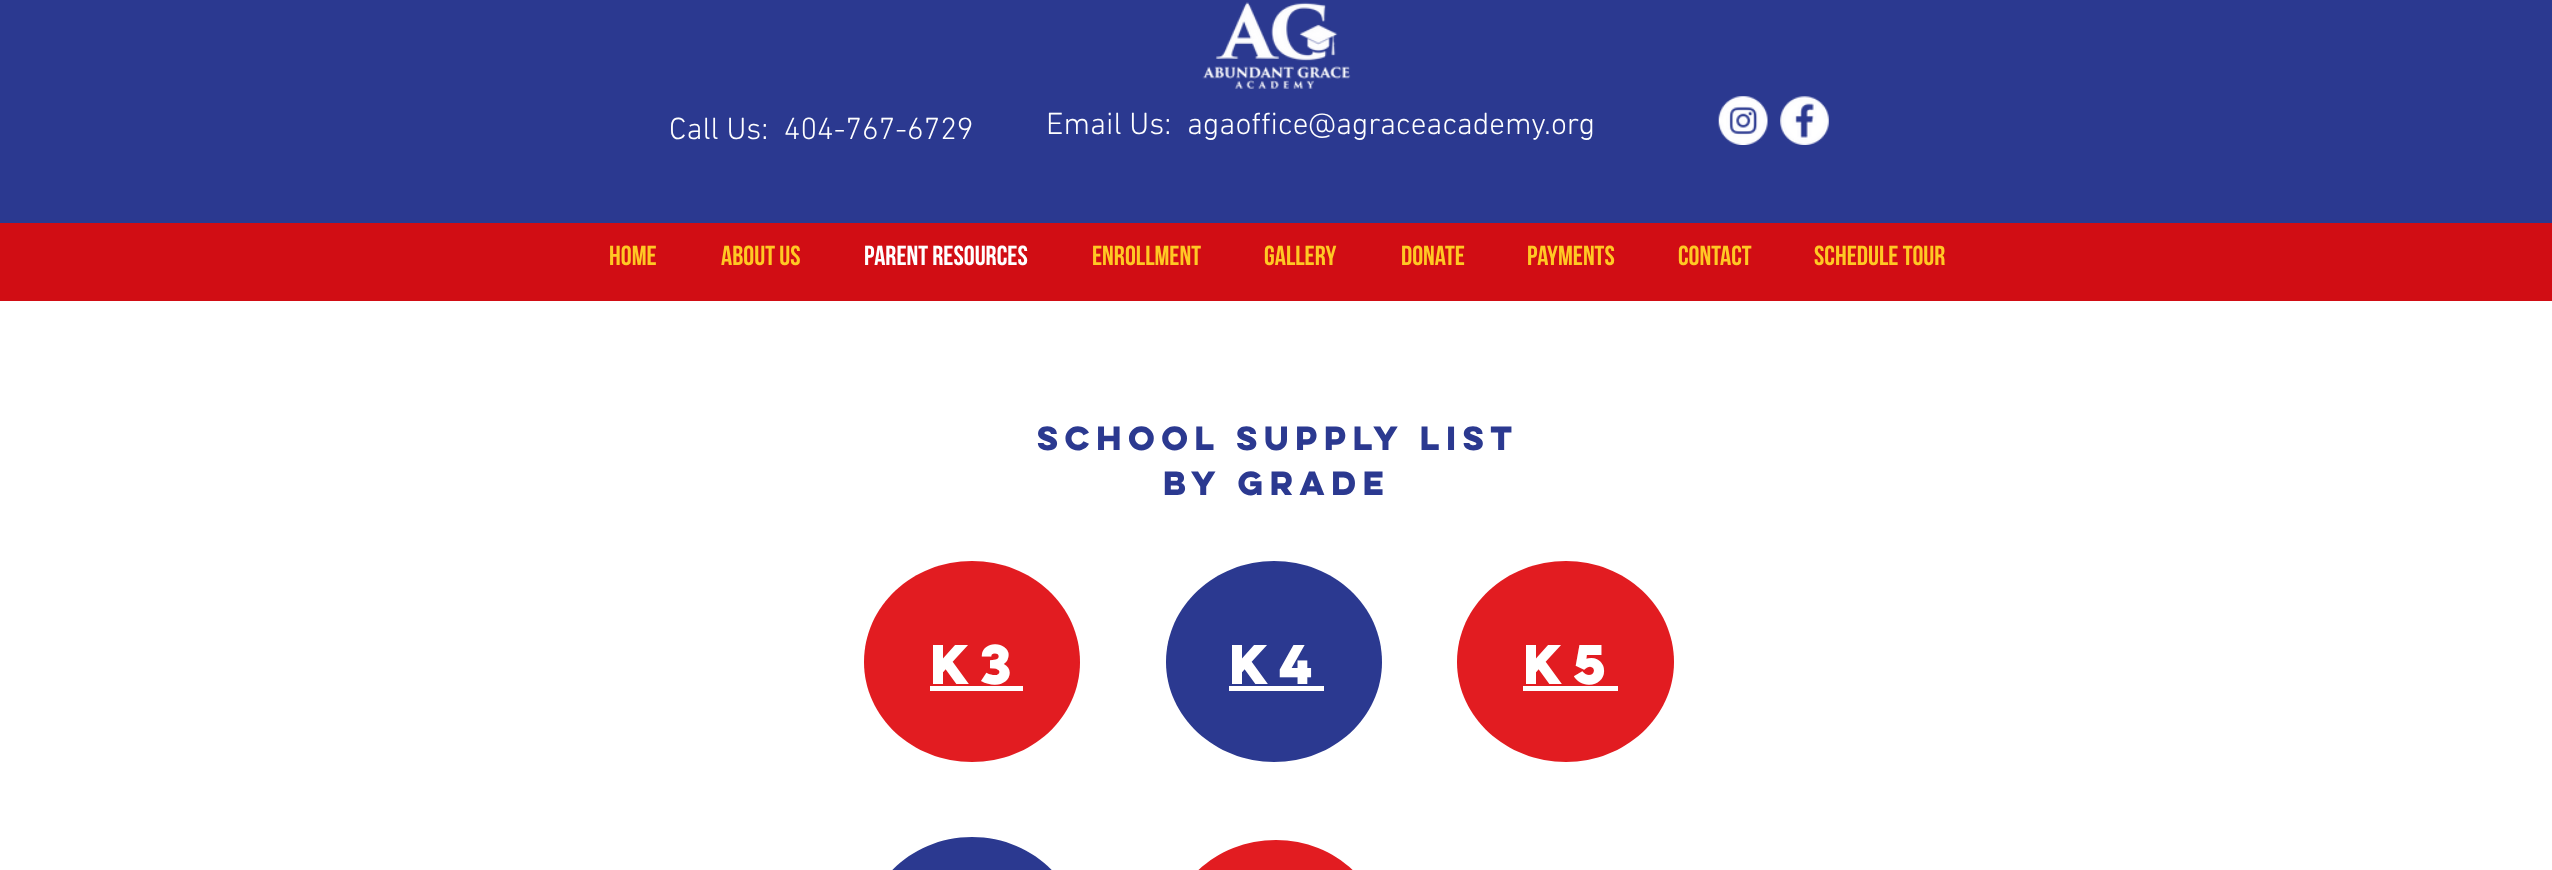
<!DOCTYPE html>
<meta charset="utf-8">
<style>body { margin: 0 } canvas { display: block }</style>
<canvas id="canvas" width="2552" height="870"></canvas>
<img id="img1" src="img_01.png" hidden>
<img id="img2" src="img_02.png" hidden>
<img id="img3" src="img_03.png" hidden>
<script>
window.onload = function () {
	const canvas = document.getElementById("canvas");
	const ctx = canvas.getContext("2d");
	ctx.miterLimit = 4;
	ctx.fontKerning = "normal";
	function txt(s, x, y) {
		ctx.fillText(s, x, y);
	}
	function fill(x, y, w, h) {
		ctx.fillRect(x, y, w, h);
	}
	function img(id, x, y, w, h) {
		ctx.drawImage(document.getElementById(id), x, y, w, h);
	}

	ctx.fillStyle = "#FFFFFF";
	fill(0, 0, 2552, 870);
	ctx.fillStyle = "#2B3990";
	fill(0, 0, 2552, 223);
	img("img1", 1202, 2, 149, 87);
	img("img2", 1718, 96, 50, 49);
	img("img3", 1780, 96, 49, 49);
	ctx.fillStyle = "#D10D14";
	fill(0, 223, 2552, 78);
	ctx.fillStyle = "#E21C21";
	ctx.beginPath();
	ctx.moveTo(1080, 662);
	ctx.bezierCurveTo(1080, 717, 1032, 762, 972, 762);
	ctx.bezierCurveTo(912, 762, 864, 717, 864, 662);
	ctx.bezierCurveTo(864, 606, 912, 561, 972, 561);
	ctx.bezierCurveTo(1032, 561, 1080, 606, 1080, 662);
	ctx.closePath();
	ctx.fill();
	ctx.fillStyle = "#2B3990";
	ctx.beginPath();
	ctx.moveTo(1382, 662);
	ctx.bezierCurveTo(1382, 717, 1334, 762, 1274, 762);
	ctx.bezierCurveTo(1215, 762, 1166, 717, 1166, 662);
	ctx.bezierCurveTo(1166, 606, 1215, 561, 1274, 561);
	ctx.bezierCurveTo(1334, 561, 1382, 606, 1382, 662);
	ctx.closePath();
	ctx.fill();
	ctx.fillStyle = "#E21C21";
	ctx.beginPath();
	ctx.moveTo(1674, 662);
	ctx.bezierCurveTo(1674, 717, 1625, 762, 1566, 762);
	ctx.bezierCurveTo(1506, 762, 1457, 717, 1457, 662);
	ctx.bezierCurveTo(1457, 606, 1506, 561, 1566, 561);
	ctx.bezierCurveTo(1625, 561, 1674, 606, 1674, 662);
	ctx.closePath();
	ctx.fill();
	ctx.fillStyle = "#FFFFFF";
	fill(930, 686, 93, 5);
	fill(1229, 686, 95, 5);
	fill(1523, 686, 95, 5);
	ctx.fillStyle = "#2B3990";
	ctx.beginPath();
	ctx.moveTo(1080, 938);
	ctx.bezierCurveTo(1080, 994, 1032, 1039, 972, 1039);
	ctx.bezierCurveTo(912, 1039, 864, 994, 864, 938);
	ctx.bezierCurveTo(864, 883, 912, 837, 972, 837);
	ctx.bezierCurveTo(1032, 837, 1080, 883, 1080, 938);
	ctx.closePath();
	ctx.fill();
	ctx.fillStyle = "#E21C21";
	ctx.beginPath();
	ctx.moveTo(1384, 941);
	ctx.bezierCurveTo(1384, 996, 1335, 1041, 1276, 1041);
	ctx.bezierCurveTo(1216, 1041, 1167, 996, 1167, 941);
	ctx.bezierCurveTo(1167, 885, 1216, 840, 1276, 840);
	ctx.bezierCurveTo(1335, 840, 1384, 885, 1384, 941);
	ctx.closePath();
	ctx.fill();
	ctx.font = "300 31.25px 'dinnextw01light'";
	ctx.fillStyle = "#FFFFFF";
	txt("Call Us:  404-767-6729", 669, 139);
	txt("Email Us:", 1046, 134);
	txt("agaoffice@agraceacademy.org", 1187, 134);
	ctx.font = "bold 27.5px Bebas Neue";
	ctx.fillStyle = "#FFC824";
	txt("HOME", 609, 265);
	txt("ABOUT US", 721, 265);
	ctx.fillStyle = "#FFFFFF";
	txt("PARENT RESOURCES", 864, 265);
	ctx.fillStyle = "#FFC824";
	txt("ENROLLMENT", 1092, 265);
	txt("GALLERY", 1264, 265);
	txt("Donate", 1401, 265);
	txt("Payments", 1527, 265);
	txt("CONTACT", 1678, 265);
	txt("SCHEDULE TOUR", 1814, 265);
	ctx.font = "bold 30px 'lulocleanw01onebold'";
	ctx.fillStyle = "#2B3990";
	txt("school supply list", 1037, 450);
	txt("by grade", 1163, 495);
	ctx.font = "bold 50px 'lulocleanw01onebold'";
	ctx.fillStyle = "#FFFFFF";
	txt("k3", 930, 684);
	txt("k4", 1229, 684);
	txt("k5", 1523, 684);
};
</script>
